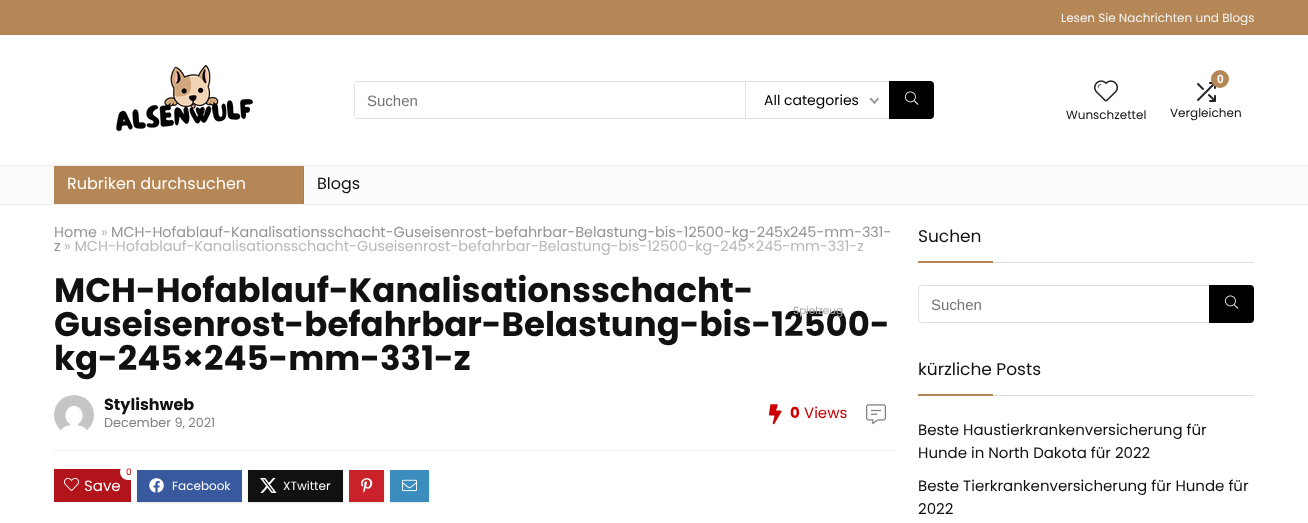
<!DOCTYPE html>
<meta charset="utf-8">
<style>body { margin: 0 } canvas { display: block }</style>
<canvas id="canvas" width="1308" height="523"></canvas>
<img id="img1" src="img_01.png" hidden>
<img id="img2" src="img_02.png" hidden>
<img id="img3" src="img_03.png" hidden>
<img id="img4" src="img_04.png" hidden>
<img id="img5" src="img_05.png" hidden>
<img id="img6" src="img_06.png" hidden>
<img id="img7" src="img_07.png" hidden>
<img id="img8" src="img_08.png" hidden>
<img id="img9" src="img_09.png" hidden>
<img id="img10" src="img_10.png" hidden>
<img id="img11" src="img_11.png" hidden>
<img id="img12" src="img_12.png" hidden>
<script>
window.onload = function () {
	const canvas = document.getElementById("canvas");
	const ctx = canvas.getContext("2d");
	ctx.miterLimit = 4;
	ctx.fontKerning = "normal";
	function txt(s, x, y) {
		ctx.fillText(s, x, y);
	}
	function fill(x, y, w, h) {
		ctx.fillRect(x, y, w, h);
	}
	function round(x, y, w, h, r) {
		ctx.beginPath();
		ctx.roundRect(x, y, w, h, r);
		ctx.fill();
	}
	function img(id, x, y, w, h) {
		ctx.drawImage(document.getElementById(id), x, y, w, h);
	}

	ctx.fillStyle = "#FFFFFF";
	fill(0, 0, 1308, 523);
	ctx.fillStyle = "#B68756";
	fill(0, 0, 1308, 35);
	ctx.fillStyle = "#FCFCFC";
	fill(0, 166, 1308, 38);
	ctx.fillStyle = "#EEEEEE";
	fill(0, 165, 1308, 1);
	fill(0, 204, 1308, 1);
	ctx.fillStyle = "#B68756";
	fill(54, 166, 249, 38);
	ctx.fillStyle = "#A77C4F";
	fill(303, 166, 1, 38);
	img("img1", 116, 65, 137, 67);
	ctx.fillStyle = "#E1E1E1";
	ctx.beginPath();
	ctx.moveTo(358, 81);
	ctx.lineTo(745, 81);
	ctx.lineTo(745, 119);
	ctx.lineTo(358, 119);
	ctx.bezierCurveTo(356, 119, 354, 117, 354, 115);
	ctx.lineTo(354, 85);
	ctx.bezierCurveTo(354, 83, 356, 81, 358, 81);
	ctx.closePath();
	ctx.moveTo(358, 82);
	ctx.lineTo(745, 82);
	ctx.lineTo(745, 118);
	ctx.lineTo(358, 118);
	ctx.bezierCurveTo(356, 118, 355, 117, 355, 115);
	ctx.lineTo(355, 85);
	ctx.bezierCurveTo(355, 83, 356, 82, 358, 82);
	ctx.closePath();
	ctx.fill("evenodd");
	fill(745, 81, 144, 1);
	fill(745, 118, 144, 1);
	fill(745, 81, 1, 38);
	ctx.fillStyle = "#999999";
	ctx.beginPath();
	ctx.moveTo(878, 97.5);
	ctx.lineTo(879, 99);
	ctx.lineTo(874.5, 104);
	ctx.lineTo(873, 102.5);
	ctx.closePath();
	ctx.fill();
	ctx.beginPath();
	ctx.moveTo(871, 97.5);
	ctx.lineTo(875.5, 102.5);
	ctx.lineTo(874.5, 104);
	ctx.lineTo(869.5, 99);
	ctx.closePath();
	ctx.fill();
	ctx.fillStyle = "#000000";
	ctx.beginPath();
	ctx.roundRect(889, 81, 45, 38, [0, 4, 4, 0]);
	ctx.fill();
	img("img2", 905, 91, 14, 14);
	img("img3", 1094, 80, 24, 22);
	img("img4", 1197, 82, 19, 20);
	ctx.fillStyle = "#B68756";
	ctx.beginPath();
	ctx.arc(1220, 79, 9, 0, Math.PI * 2);
	ctx.fill();
	ctx.fillStyle = "#F0F0F0";
	fill(54, 450, 840, 1);
	img("img5", 54, 395, 40, 36);
	img("img6", 769, 404, 13, 21);
	img("img7", 866, 404, 20, 21);
	ctx.fillStyle = "#B1141A";
	fill(54, 469, 77, 33);
	ctx.save();
	ctx.beginPath();
	ctx.rect(54, 466, 840, 42);
	ctx.clip();
	ctx.fillStyle = "#FFFFFF";
	round(120, 464, 18, 16, 8);
	ctx.restore();
	img("img8", 64, 477, 15, 14);
	ctx.fillStyle = "#E4E4E4";
	ctx.filter = "blur(1px)";
	ctx.beginPath();
	ctx.rect(137, 471, 105, 32);
	ctx.fill();
	ctx.filter = "none";
	ctx.fillStyle = "#39599F";
	fill(137, 470, 105, 32);
	img("img9", 149, 478, 15, 15);
	ctx.fillStyle = "#E4E4E4";
	ctx.filter = "blur(1px)";
	ctx.beginPath();
	ctx.rect(248, 471, 95, 32);
	ctx.fill();
	ctx.filter = "none";
	ctx.fillStyle = "#111111";
	fill(248, 470, 95, 32);
	img("img10", 260, 477, 17, 16);
	ctx.fillStyle = "#E4E4E4";
	ctx.filter = "blur(1px)";
	ctx.beginPath();
	ctx.rect(349, 471, 35, 32);
	ctx.fill();
	ctx.filter = "none";
	ctx.fillStyle = "#CA212A";
	fill(349, 470, 35, 32);
	img("img11", 361, 478, 12, 15);
	ctx.fillStyle = "#E4E4E4";
	ctx.filter = "blur(1px)";
	ctx.beginPath();
	ctx.rect(390, 471, 39, 32);
	ctx.fill();
	ctx.filter = "none";
	ctx.fillStyle = "#3B8DBD";
	fill(390, 470, 39, 32);
	img("img12", 402, 479, 15, 13);
	ctx.fillStyle = "#DDDDDD";
	fill(993, 262, 261, 1);
	ctx.fillStyle = "#B68756";
	fill(918, 261, 75, 2);
	ctx.beginPath();
	ctx.roundRect(918.5, 285.5, 335, 37, 3.5);
	ctx.strokeStyle = "#E1E1E1";
	ctx.stroke();
	ctx.fillStyle = "#000000";
	ctx.beginPath();
	ctx.roundRect(1209, 285, 45, 38, [0, 4, 4, 0]);
	ctx.fill();
	img("img2", 1225, 295, 14, 14);
	ctx.fillStyle = "#DDDDDD";
	fill(993, 395, 261, 1);
	ctx.fillStyle = "#B68756";
	fill(918, 394, 75, 2);
	ctx.save();
	ctx.beginPath();
	ctx.rect(1061, 10, 193, 15);
	ctx.clip();
	ctx.font = "12px Poppins";
	ctx.fillStyle = "#F4F4F4";
	txt("Lesen Sie Nachrichten und Blogs", 1061, 22);
	ctx.restore();
	ctx.font = "16px Poppins";
	ctx.fillStyle = "#FFFFFF";
	txt("Rubriken durchsuchen", 67, 189);
	ctx.fillStyle = "#111111";
	txt("Blogs", 317, 189);
	ctx.font = "15px Liberation Sans";
	ctx.fillStyle = "#757575";
	txt("Suchen", 367, 106);
	ctx.font = "14px Poppins";
	ctx.fillStyle = "#000000";
	txt("All categories", 764, 105);
	ctx.font = "12px Poppins";
	ctx.fillStyle = "#111111";
	txt("Wunschzettel", 1066, 119);
	ctx.font = "bold 12px Liberation Sans";
	ctx.fillStyle = "#FFFFFF";
	txt("0", 1217, 83);
	ctx.font = "12px Poppins";
	ctx.fillStyle = "#111111";
	txt("Vergleichen", 1170, 117);
	ctx.font = "14.4px Poppins";
	ctx.fillStyle = "#949494";
	txt("Home", 54, 237);
	ctx.fillStyle = "#B8B8B8";
	txt("»", 101, 237);
	ctx.fillStyle = "#949494";
	txt("MCH-Hofablauf-Kanalisationsschacht-Guseisenrost-befahrbar-Belastung-bis-12500-kg-245x245-mm-331-", 111, 237);
	txt("z", 54, 251);
	ctx.fillStyle = "#B8B8B8";
	txt("» MCH-Hofablauf-Kanalisationsschacht-Guseisenrost-befahrbar-Belastung-bis-12500-kg-245×245-mm-331-z", 64, 251);
	ctx.font = "bold 34px Poppins";
	ctx.fillStyle = "#111111";
	txt("MCH-Hofablauf-Kanalisationsschacht-", 54, 302);
	txt("Guseisenrost-befahrbar-Belastung-bis-12500-", 54, 336);
	ctx.font = "10.5px Poppins";
	ctx.fillStyle = "#A8A8A8";
	txt("Spielzeug", 793, 314);
	ctx.font = "bold 34px Poppins";
	ctx.fillStyle = "#111111";
	txt("kg-245×245-mm-331-z", 54, 370);
	ctx.font = "bold 16px Poppins";
	txt("Stylishweb", 104, 410);
	ctx.font = "12.75px Poppins";
	ctx.fillStyle = "#808080";
	txt("December 9, 2021", 104, 427);
	ctx.font = "bold 15px Poppins";
	ctx.fillStyle = "#CC0000";
	txt("0", 790, 418);
	ctx.font = "15px Poppins";
	txt("Views", 804, 418);
	ctx.font = "9px Poppins";
	txt("0", 126, 475);
	ctx.font = "15px Poppins";
	ctx.fillStyle = "#FFFFFF";
	txt("Save", 84, 491);
	ctx.font = "12px Poppins";
	txt("Facebook", 172, 490);
	txt("XTwitter", 283, 490);
	ctx.font = "17px Poppins";
	ctx.fillStyle = "#111111";
	txt("Suchen", 918, 242);
	ctx.font = "15px Liberation Sans";
	ctx.fillStyle = "#757575";
	txt("Suchen", 931, 310);
	ctx.font = "17px Poppins";
	ctx.fillStyle = "#111111";
	txt("kürzliche Posts", 918, 375);
	ctx.font = "15px Poppins";
	txt("Beste Haustierkrankenversicherung für", 918, 435);
	txt("Hunde in North Dakota für 2022", 918, 458);
	txt("Beste Tierkrankenversicherung für Hunde für", 918, 491);
	txt("2022", 918, 514);
};
</script>
